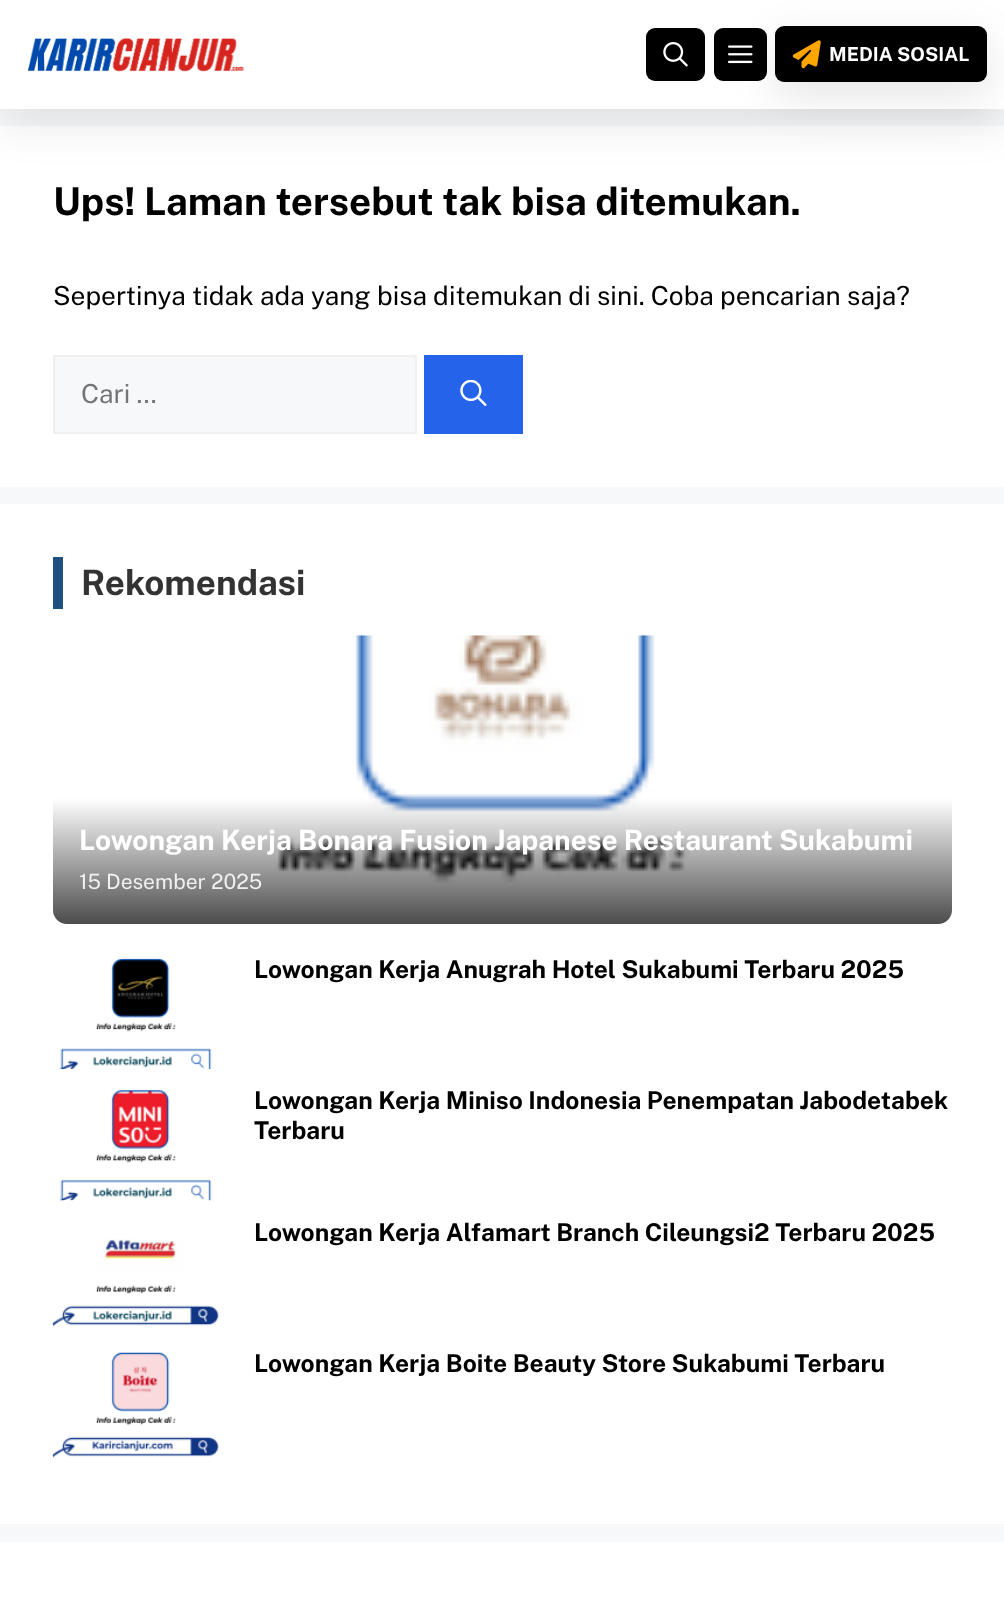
<!DOCTYPE html>
<meta charset="utf-8">
<style>body { margin: 0 } canvas { display: block }</style>
<canvas id="canvas" width="1004" height="1618"></canvas>
<img id="img1" src="img_01.png" hidden>
<img id="img2" src="img_02.png" hidden>
<img id="img3" src="img_03.png" hidden>
<img id="img4" src="img_04.png" hidden>
<img id="img5" src="img_05.png" hidden>
<img id="img6" src="img_06.png" hidden>
<img id="img7" src="img_07.png" hidden>
<img id="img8" src="img_08.png" hidden>
<img id="img9" src="img_09.png" hidden>
<img id="img10" src="img_10.png" hidden>
<script>
window.onload = function () {
	const canvas = document.getElementById("canvas");
	const ctx = canvas.getContext("2d");
	ctx.miterLimit = 4;
	ctx.fontKerning = "normal";
	function txt(s, x, y) {
		ctx.fillText(s, x, y);
	}
	function fill(x, y, w, h) {
		ctx.fillRect(x, y, w, h);
	}
	function round(x, y, w, h, r) {
		ctx.beginPath();
		ctx.roundRect(x, y, w, h, r);
		ctx.fill();
	}
	function img(id, x, y, w, h) {
		ctx.drawImage(document.getElementById(id), x, y, w, h);
	}
	let gradient;

	ctx.fillStyle = "#F7F8F9";
	fill(0, 0, 1004, 1618);
	ctx.fillStyle = "#FFFFFF";
	fill(0, 126, 1004, 361);
	ctx.fillStyle = "rgba(0, 0, 0, 0.1)";
	ctx.filter = "blur(22px)";
	ctx.beginPath();
	ctx.rect(0, 14, 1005, 109);
	ctx.fill();
	ctx.filter = "none";
	ctx.fillStyle = "#FFFFFF";
	fill(0, 0, 1004, 109);
	img("img1", 28, 37, 217, 35);
	ctx.fillStyle = "rgba(0, 0, 0, 0.1)";
	ctx.filter = "blur(22px)";
	ctx.beginPath();
	ctx.roundRect(775, 40, 212, 56, 9);
	ctx.fill();
	ctx.filter = "none";
	ctx.fillStyle = "#FFFFFF";
	fill(750, 28, 17, 53);
	ctx.fillStyle = "#000000";
	round(646, 28, 59, 53, 9);
	img("img2", 663, 42, 25, 25);
	round(714, 28, 53, 53, 9);
	img("img3", 728, 45, 25, 19);
	round(775, 26, 212, 56, 9);
	img("img4", 792, 40, 29, 29);
	ctx.fillStyle = "#F7F8F9";
	ctx.beginPath();
	ctx.rect(54, 356, 362, 77);
	ctx.fill();
	ctx.strokeStyle = "#F0F0F0";
	ctx.lineWidth = 2;
	ctx.stroke();
	ctx.fillStyle = "#2563EB";
	fill(424, 355, 99, 79);
	img("img5", 460, 380, 27, 26);
	ctx.fillStyle = "#FFFFFF";
	fill(0, 504, 1004, 1020);
	ctx.fillStyle = "#1E5180";
	fill(53, 557, 10, 52);
	img("img6", 275, 635, 415, 248);
	gradient = ctx.createLinearGradient(502, 798, 502, 924);
	gradient.addColorStop(0, "rgba(0, 0, 0, 0)");
	gradient.addColorStop(1, "rgba(0, 0, 0, 0.7)");
	ctx.fillStyle = gradient;
	ctx.beginPath();
	ctx.roundRect(53, 798, 899, 126, [0, 0, 14, 14]);
	ctx.fill();
	img("img7", 58, 958, 154, 112);
	img("img8", 59, 1090, 153, 111);
	img("img9", 52, 1239, 167, 88);
	img("img10", 52, 1352, 167, 106);
	ctx.fillStyle = "#FFFFFF";
	fill(0, 1542, 1004, 76);
	ctx.font = "bold 19.25px Public Sans";
	txt("MEDIA SOSIAL", 829, 61);
	ctx.font = "bold 38.5px Public Sans";
	ctx.fillStyle = "#000000";
	txt("Ups! Laman tersebut tak bisa ditemukan.", 53, 215);
	ctx.font = "26.25px Public Sans";
	txt("Sepertinya tidak ada yang bisa ditemukan di sini. Coba pencarian saja?", 53, 305);
	ctx.fillStyle = "#757575";
	txt("Cari …", 81, 403);
	ctx.font = "bold 35px Public Sans";
	ctx.fillStyle = "#333333";
	txt("Rekomendasi", 81, 595);
	ctx.font = "bold 28px Public Sans";
	ctx.fillStyle = "#FFFFFF";
	txt("Lowongan Kerja Bonara Fusion Japanese Restaurant Sukabumi", 79, 850);
	ctx.font = "21px Public Sans";
	ctx.fillStyle = "#F0F0F0";
	txt("15 Desember 2025", 79, 889);
	ctx.font = "bold 24.5px Public Sans";
	ctx.fillStyle = "#000000";
	txt("Lowongan Kerja Anugrah Hotel Sukabumi Terbaru 2025", 254, 978);
	txt("Lowongan Kerja Miniso Indonesia Penempatan Jabodetabek", 254, 1109);
	txt("Terbaru", 254, 1139);
	txt("Lowongan Kerja Alfamart Branch Cileungsi2 Terbaru 2025", 254, 1241);
	txt("Lowongan Kerja Boite Beauty Store Sukabumi Terbaru", 254, 1372);
};
</script>
